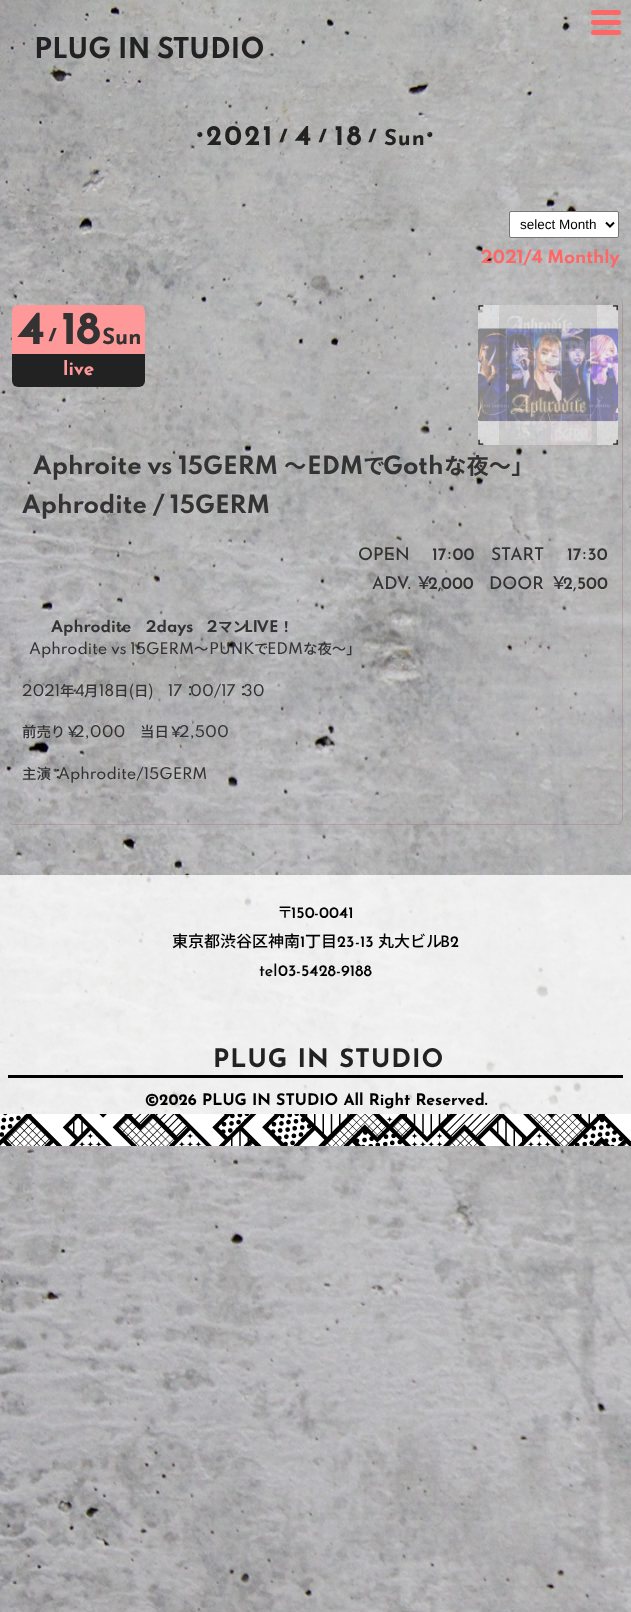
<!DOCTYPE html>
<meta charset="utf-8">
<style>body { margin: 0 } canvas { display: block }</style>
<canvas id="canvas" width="631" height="1612"></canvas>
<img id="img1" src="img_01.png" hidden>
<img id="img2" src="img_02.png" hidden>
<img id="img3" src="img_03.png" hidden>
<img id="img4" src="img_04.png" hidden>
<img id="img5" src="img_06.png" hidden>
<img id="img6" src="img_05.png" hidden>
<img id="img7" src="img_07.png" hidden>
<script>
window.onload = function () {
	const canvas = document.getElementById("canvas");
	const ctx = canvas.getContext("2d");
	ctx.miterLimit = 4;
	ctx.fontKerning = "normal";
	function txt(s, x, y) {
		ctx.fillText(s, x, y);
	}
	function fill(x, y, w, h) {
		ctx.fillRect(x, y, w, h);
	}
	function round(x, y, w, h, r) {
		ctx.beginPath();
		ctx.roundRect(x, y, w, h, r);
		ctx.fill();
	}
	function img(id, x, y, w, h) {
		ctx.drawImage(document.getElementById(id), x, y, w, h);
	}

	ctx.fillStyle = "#FFFFFF";
	fill(0, 0, 631, 1612);
	img("img1", 0, 0, 631, 1612);
	img("img2", 197, 131, 6, 7);
	img("img3", 427, 131, 6, 7);
	ctx.fillStyle = "#FF6666";
	round(591, 10, 30, 5, 2.5);
	round(591, 20, 30, 5, 2.5);
	round(591, 30, 30, 5, 2.5);
	ctx.fillStyle = "#FFFFFF";
	ctx.beginPath();
	ctx.roundRect(509.5, 211.5, 109, 26, 1.5);
	ctx.fill();
	ctx.strokeStyle = "#767676";
	ctx.stroke();
	ctx.beginPath();
	ctx.moveTo(606, 222.5);
	ctx.lineTo(610, 226.5);
	ctx.lineTo(614, 222.5);
	ctx.strokeStyle = "#000000";
	ctx.lineWidth = 2;
	ctx.stroke();
	ctx.fillStyle = "rgba(153, 102, 102, 0.3)";
	ctx.beginPath();
	ctx.moveTo(14, 297);
	ctx.lineTo(617, 297);
	ctx.bezierCurveTo(620, 297, 623, 300, 623, 303);
	ctx.lineTo(623, 819);
	ctx.bezierCurveTo(623, 822, 620, 825, 617, 825);
	ctx.lineTo(14, 825);
	ctx.bezierCurveTo(11, 825, 8, 822, 8, 819);
	ctx.lineTo(8, 303);
	ctx.bezierCurveTo(8, 300, 11, 297, 14, 297);
	ctx.closePath();
	ctx.moveTo(14, 297);
	ctx.lineTo(617, 297);
	ctx.bezierCurveTo(620, 297, 622, 300, 622, 303);
	ctx.lineTo(622, 819);
	ctx.bezierCurveTo(622, 822, 620, 824, 617, 824);
	ctx.lineTo(14, 824);
	ctx.bezierCurveTo(11, 824, 8, 822, 8, 819);
	ctx.lineTo(8, 303);
	ctx.bezierCurveTo(8, 300, 11, 297, 14, 297);
	ctx.closePath();
	ctx.fill("evenodd");
	ctx.fillStyle = "#FF9999";
	round(12, 305, 133, 82, 6);
	ctx.fillStyle = "#222222";
	ctx.beginPath();
	ctx.roundRect(12, 354, 133, 33, [0, 0, 6, 6]);
	ctx.fill();
	ctx.fillStyle = "rgba(255, 255, 255, 0.5)";
	fill(478, 305, 140, 140);
	img("img4", 478, 305, 140, 140);
	img("img5", 478, 328, 140, 94);
	img("img6", 499, 305, 98, 140);
	ctx.fillStyle = "rgba(255, 255, 255, 0.8)";
	fill(0, 875, 631, 239);
	ctx.fillStyle = "#000000";
	fill(8, 1075, 615, 3);
	ctx.fillStyle = "#FFFFFF";
	fill(0, 1114, 631, 32);
	img("img7", 0, 1114, 631, 32);
	ctx.font = "bold 25.5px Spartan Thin";
	ctx.fillStyle = "#222222";
	txt("PLUG IN", 34, 58);
	txt("STUDIO", 157, 58);
	ctx.letterSpacing = "3px";
	ctx.font = "bold 27.25px 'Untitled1'";
	txt("2021/4/18/", 206, 145);
	ctx.letterSpacing = "1px";
	ctx.font = "bold 22px Josefin Sans";
	txt("Sun", 384, 145);
	ctx.letterSpacing = "0px";
	ctx.font = "13.5px Liberation Sans";
	ctx.fillStyle = "#000000";
	txt("select Month", 520, 229);
	ctx.font = "bold 16px Spartan Thin";
	ctx.fillStyle = "#FF6666";
	txt("2021/4 Monthly", 481, 263);
	ctx.font = "bold 45px 'Untitled1'";
	ctx.fillStyle = "#333333";
	txt("4", 18, 344);
	ctx.font = "bold 27px 'Untitled1'";
	txt("/", 44, 344);
	ctx.font = "bold 45px 'Untitled1'";
	txt("18", 61, 344);
	ctx.font = "bold 22.4px Josefin Sans";
	txt("Sun", 102, 344);
	ctx.font = "bold 19px Josefin Sans";
	ctx.fillStyle = "#FF9999";
	txt("live", 63, 375);
	ctx.font = "bold 22.4px Spartan Thin";
	ctx.fillStyle = "#333333";
	txt("Aphroite vs 15GERM", 33, 474);
	ctx.font = "bold 22.4px Noto Sans JP";
	txt("～", 284, 474);
	ctx.font = "bold 22.4px Spartan Thin";
	txt("EDM", 307, 474);
	ctx.font = "bold 22.4px Noto Sans JP";
	txt("で", 363, 474);
	ctx.font = "bold 22.4px Spartan Thin";
	txt("Goth", 383, 474);
	ctx.font = "bold 22.4px Noto Sans JP";
	txt("な夜～」", 444, 474);
	ctx.font = "bold 22.4px Spartan Thin";
	txt("Aphrodite / 15GERM", 22, 513);
	ctx.font = "500 17.5px Josefin Sans";
	txt("OPEN", 358, 560);
	ctx.font = "17.5px 'Untitled1'";
	txt("17:00", 432, 560);
	ctx.font = "500 17.5px Josefin Sans";
	txt("START", 491, 560);
	ctx.font = "17.5px 'Untitled1'";
	txt("17:30", 567, 560);
	ctx.font = "500 17.5px Josefin Sans";
	txt("ADV.", 372, 589);
	ctx.font = "500 17.5px Noto Sans JP";
	txt("￥", 415, 589);
	ctx.font = "17.5px 'Untitled1'";
	txt("2", 428, 589);
	ctx.font = "500 17.5px Josefin Sans";
	txt(",", 438, 589);
	ctx.font = "17.5px 'Untitled1'";
	txt("000", 441, 589);
	ctx.font = "500 17.5px Josefin Sans";
	txt("DOOR", 489, 589);
	ctx.font = "500 17.5px Noto Sans JP";
	txt("￥", 550, 589);
	ctx.font = "17.5px 'Untitled1'";
	txt("2", 563, 589);
	ctx.font = "500 17.5px Josefin Sans";
	txt(",", 573, 589);
	ctx.font = "17.5px 'Untitled1'";
	txt("500", 577, 589);
	ctx.font = "bold 14.4px Spartan Thin";
	txt("Aphrodite", 51, 632);
	txt("2days", 146, 632);
	txt("2", 207, 632);
	ctx.font = "bold 14.4px Noto Sans JP";
	txt("マン", 218, 632);
	ctx.font = "bold 14.4px Spartan Thin";
	txt("LIVE", 244, 632);
	ctx.font = "bold 14.4px Noto Sans JP";
	txt("！", 279, 632);
	ctx.font = "500 14.4px Spartan Thin";
	txt("Aphrodite vs 15GERM", 29, 654);
	ctx.font = "500 14.4px Noto Sans JP";
	txt("～", 194, 654);
	ctx.font = "500 14.4px Spartan Thin";
	txt("PUNK", 209, 654);
	ctx.font = "500 14.4px Noto Sans JP";
	txt("で", 254, 654);
	ctx.font = "500 14.4px Spartan Thin";
	txt("EDM", 267, 654);
	ctx.font = "500 14.4px Noto Sans JP";
	txt("な夜～」", 303, 654);
	ctx.font = "500 14.4px Spartan Thin";
	txt("2021", 22, 696);
	ctx.font = "500 14.4px Noto Sans JP";
	txt("年", 60, 696);
	ctx.font = "500 14.4px Spartan Thin";
	txt("4", 75, 696);
	ctx.font = "500 14.4px Noto Sans JP";
	txt("月", 84, 696);
	ctx.font = "500 14.4px Spartan Thin";
	txt("18", 99, 696);
	ctx.font = "500 14.4px Noto Sans JP";
	txt("日", 114, 696);
	ctx.font = "500 14.4px Spartan Thin";
	txt("(", 129, 696);
	ctx.font = "500 14.4px Noto Sans JP";
	txt("日", 134, 696);
	ctx.font = "500 14.4px Spartan Thin";
	txt(")", 148, 696);
	txt("17", 168, 696);
	ctx.font = "500 14.4px Noto Sans JP";
	txt("：", 183, 696);
	ctx.font = "500 14.4px Spartan Thin";
	txt("00/17", 190, 696);
	ctx.font = "500 14.4px Noto Sans JP";
	txt("：", 236, 696);
	ctx.font = "500 14.4px Spartan Thin";
	txt("30", 243, 696);
	ctx.font = "500 14.4px Noto Sans JP";
	txt("前売り￥", 22, 737);
	ctx.font = "500 14.4px Spartan Thin";
	txt("2,000", 74, 737);
	ctx.font = "500 14.4px Noto Sans JP";
	txt("当日￥", 140, 737);
	ctx.font = "500 14.4px Spartan Thin";
	txt("2,500", 179, 737);
	ctx.font = "500 14.4px Noto Sans JP";
	txt("主演：", 22, 779);
	ctx.font = "500 14.4px Spartan Thin";
	txt("Aphrodite/15GERM", 58, 779);
	ctx.font = "500 16px Noto Sans JP";
	ctx.fillStyle = "#000000";
	txt("〒", 277, 918);
	ctx.font = "16px 'Untitled1'";
	txt("150", 291, 918);
	ctx.font = "500 16px Josefin Sans";
	txt("-", 314, 918);
	ctx.font = "16px 'Untitled1'";
	txt("0041", 319, 918);
	ctx.font = "500 16px Noto Sans JP";
	txt("東京都渋谷区神南", 172, 947);
	ctx.font = "16px 'Untitled1'";
	txt("1", 300, 947);
	ctx.font = "500 16px Noto Sans JP";
	txt("丁目", 305, 947);
	ctx.font = "16px 'Untitled1'";
	txt("23", 337, 947);
	ctx.font = "500 16px Josefin Sans";
	txt("-", 355, 947);
	ctx.font = "16px 'Untitled1'";
	txt("13", 360, 947);
	ctx.font = "500 16px Noto Sans JP";
	txt("丸大ビル", 378, 947);
	ctx.font = "500 16px Josefin Sans";
	txt("B", 440, 947);
	ctx.font = "16px 'Untitled1'";
	txt("2", 450, 947);
	ctx.font = "500 16px Josefin Sans";
	txt("tel", 259, 976);
	ctx.font = "16px 'Untitled1'";
	txt("03", 278, 976);
	ctx.font = "500 16px Josefin Sans";
	txt("-", 296, 976);
	ctx.font = "16px 'Untitled1'";
	txt("5428", 301, 976);
	ctx.font = "500 16px Josefin Sans";
	txt("-", 336, 976);
	ctx.font = "16px 'Untitled1'";
	txt("9188", 341, 976);
	ctx.letterSpacing = "1px";
	ctx.font = "bold 25.5px Josefin Sans";
	ctx.fillStyle = "#222222";
	txt("PLUG IN STUDIO", 213, 1067);
	ctx.letterSpacing = "0px";
	ctx.font = "bold 16px Josefin Sans";
	ctx.fillStyle = "#000000";
	txt("©2026 PLUG IN STUDIO All Right Reserved.", 145, 1105);
};
</script>
